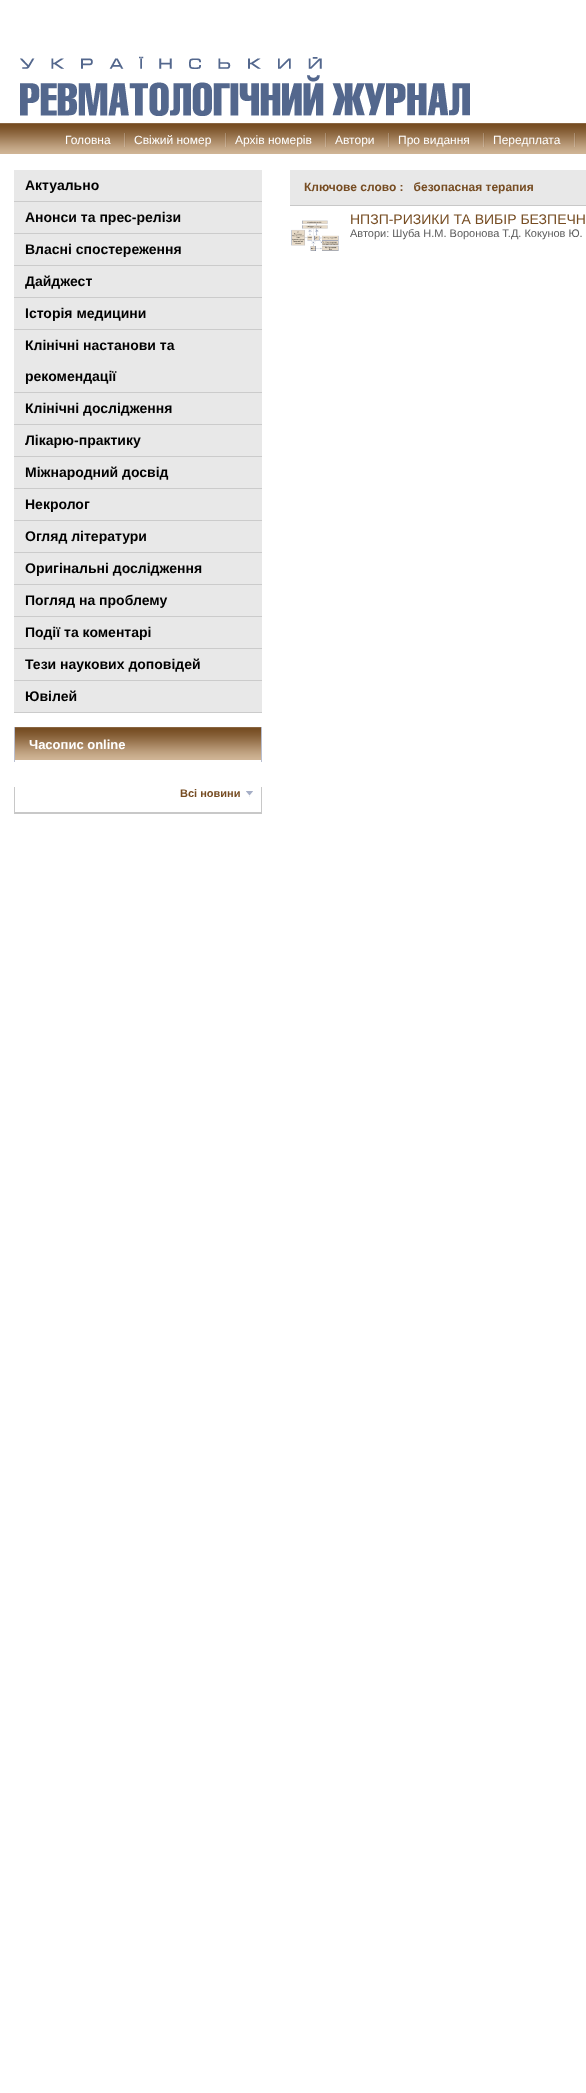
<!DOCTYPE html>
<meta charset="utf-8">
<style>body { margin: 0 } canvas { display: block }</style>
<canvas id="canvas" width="586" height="2093"></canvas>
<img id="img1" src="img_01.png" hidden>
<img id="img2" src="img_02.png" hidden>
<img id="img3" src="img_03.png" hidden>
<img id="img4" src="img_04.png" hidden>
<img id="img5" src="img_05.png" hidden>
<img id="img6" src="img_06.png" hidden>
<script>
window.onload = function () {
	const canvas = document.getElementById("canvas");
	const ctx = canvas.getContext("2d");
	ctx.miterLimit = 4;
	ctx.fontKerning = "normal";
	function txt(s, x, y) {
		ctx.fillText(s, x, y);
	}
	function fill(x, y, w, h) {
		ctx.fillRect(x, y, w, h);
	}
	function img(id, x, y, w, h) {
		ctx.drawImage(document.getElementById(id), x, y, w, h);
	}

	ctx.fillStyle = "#FFFFFF";
	fill(0, 0, 586, 2093);
	img("img1", 20, 56, 450, 60);
	img("img2", 0, 123, 586, 31);
	img("img3", 124, 133, 2, 14);
	img("img3", 225, 133, 2, 14);
	img("img3", 325, 133, 2, 14);
	img("img3", 388, 133, 2, 14);
	img("img3", 483, 133, 2, 14);
	img("img3", 574, 133, 2, 14);
	ctx.fillStyle = "#E8E8E8";
	fill(14, 170, 248, 31);
	ctx.fillStyle = "#CBCBCB";
	fill(14, 201, 248, 1);
	ctx.fillStyle = "#E8E8E8";
	fill(14, 202, 248, 31);
	ctx.fillStyle = "#CBCBCB";
	fill(14, 233, 248, 1);
	ctx.fillStyle = "#E8E8E8";
	fill(14, 234, 248, 31);
	ctx.fillStyle = "#CBCBCB";
	fill(14, 265, 248, 1);
	ctx.fillStyle = "#E8E8E8";
	fill(14, 266, 248, 31);
	ctx.fillStyle = "#CBCBCB";
	fill(14, 297, 248, 1);
	ctx.fillStyle = "#E8E8E8";
	fill(14, 298, 248, 31);
	ctx.fillStyle = "#CBCBCB";
	fill(14, 329, 248, 1);
	ctx.fillStyle = "#E8E8E8";
	fill(14, 330, 248, 62);
	ctx.fillStyle = "#CBCBCB";
	fill(14, 392, 248, 1);
	ctx.fillStyle = "#E8E8E8";
	fill(14, 393, 248, 31);
	ctx.fillStyle = "#CBCBCB";
	fill(14, 424, 248, 1);
	ctx.fillStyle = "#E8E8E8";
	fill(14, 425, 248, 31);
	ctx.fillStyle = "#CBCBCB";
	fill(14, 456, 248, 1);
	ctx.fillStyle = "#E8E8E8";
	fill(14, 457, 248, 31);
	ctx.fillStyle = "#CBCBCB";
	fill(14, 488, 248, 1);
	ctx.fillStyle = "#E8E8E8";
	fill(14, 489, 248, 31);
	ctx.fillStyle = "#CBCBCB";
	fill(14, 520, 248, 1);
	ctx.fillStyle = "#E8E8E8";
	fill(14, 521, 248, 31);
	ctx.fillStyle = "#CBCBCB";
	fill(14, 552, 248, 1);
	ctx.fillStyle = "#E8E8E8";
	fill(14, 553, 248, 31);
	ctx.fillStyle = "#CBCBCB";
	fill(14, 584, 248, 1);
	ctx.fillStyle = "#E8E8E8";
	fill(14, 585, 248, 31);
	ctx.fillStyle = "#CBCBCB";
	fill(14, 616, 248, 1);
	ctx.fillStyle = "#E8E8E8";
	fill(14, 617, 248, 31);
	ctx.fillStyle = "#CBCBCB";
	fill(14, 648, 248, 1);
	ctx.fillStyle = "#E8E8E8";
	fill(14, 649, 248, 31);
	ctx.fillStyle = "#CBCBCB";
	fill(14, 680, 248, 1);
	ctx.fillStyle = "#E8E8E8";
	fill(14, 681, 248, 31);
	ctx.fillStyle = "#CBCBCB";
	fill(14, 712, 248, 1);
	img("img4", 15, 727, 246, 33);
	ctx.fillStyle = "#B9BFD1";
	fill(261, 727, 1, 35);
	fill(14, 727, 1, 35);
	ctx.fillStyle = "#C8C8C8";
	fill(261, 787, 1, 27);
	fill(14, 812, 248, 2);
	fill(14, 787, 1, 27);
	img("img5", 246, 791, 7, 6);
	ctx.fillStyle = "#E8E8E8";
	fill(290, 170, 296, 35);
	ctx.fillStyle = "#C8C8C8";
	fill(290, 205, 296, 1);
	img("img6", 291, 220, 48, 31);
	ctx.font = "12px Liberation Sans";
	ctx.fillStyle = "#FFFFFF";
	txt("Головна", 65, 144);
	txt("Свіжий номер", 134, 144);
	txt("Архів номерів", 235, 144);
	txt("Автори", 335, 144);
	txt("Про видання", 398, 144);
	txt("Передплата", 493, 144);
	ctx.font = "bold 14px Liberation Sans";
	ctx.fillStyle = "#000000";
	txt("Актуально", 25, 190);
	txt("Анонси та прес-релізи", 25, 222);
	txt("Власні спостереження", 25, 254);
	txt("Дайджест", 25, 286);
	txt("Історія медицини", 25, 318);
	txt("Клінiчні настанови та", 25, 350);
	txt("рекомендації", 25, 381);
	txt("Клінічні дослідження", 25, 413);
	txt("Лікарю-практику", 25, 445);
	txt("Міжнародний досвід", 25, 477);
	txt("Некролог", 25, 509);
	txt("Огляд літератури", 25, 541);
	txt("Оригінальні дослідження", 25, 573);
	txt("Погляд на проблему", 25, 605);
	txt("Події та коментарі", 25, 637);
	txt("Тези наукових доповідей", 25, 669);
	txt("Ювілей", 25, 701);
	ctx.font = "bold 13px Liberation Sans";
	ctx.fillStyle = "#FFFFFF";
	txt("Часопис online", 29, 749);
	ctx.font = "bold 11px Liberation Sans";
	ctx.fillStyle = "#764C22";
	txt("Всі новини", 180, 797);
	ctx.font = "bold 12px Liberation Sans";
	txt("Ключове слово :   безопасная терапия", 304, 191);
	ctx.font = "14px Liberation Sans";
	txt("НПЗП-РИЗИКИ ТА ВИБІР БЕЗПЕЧН", 350, 224);
	ctx.font = "11px Liberation Sans";
	ctx.fillStyle = "#5A5A5A";
	txt("Автори: Шуба Н.М. Воронова Т.Д. Кокунов Ю.", 350, 237);
};
</script>
